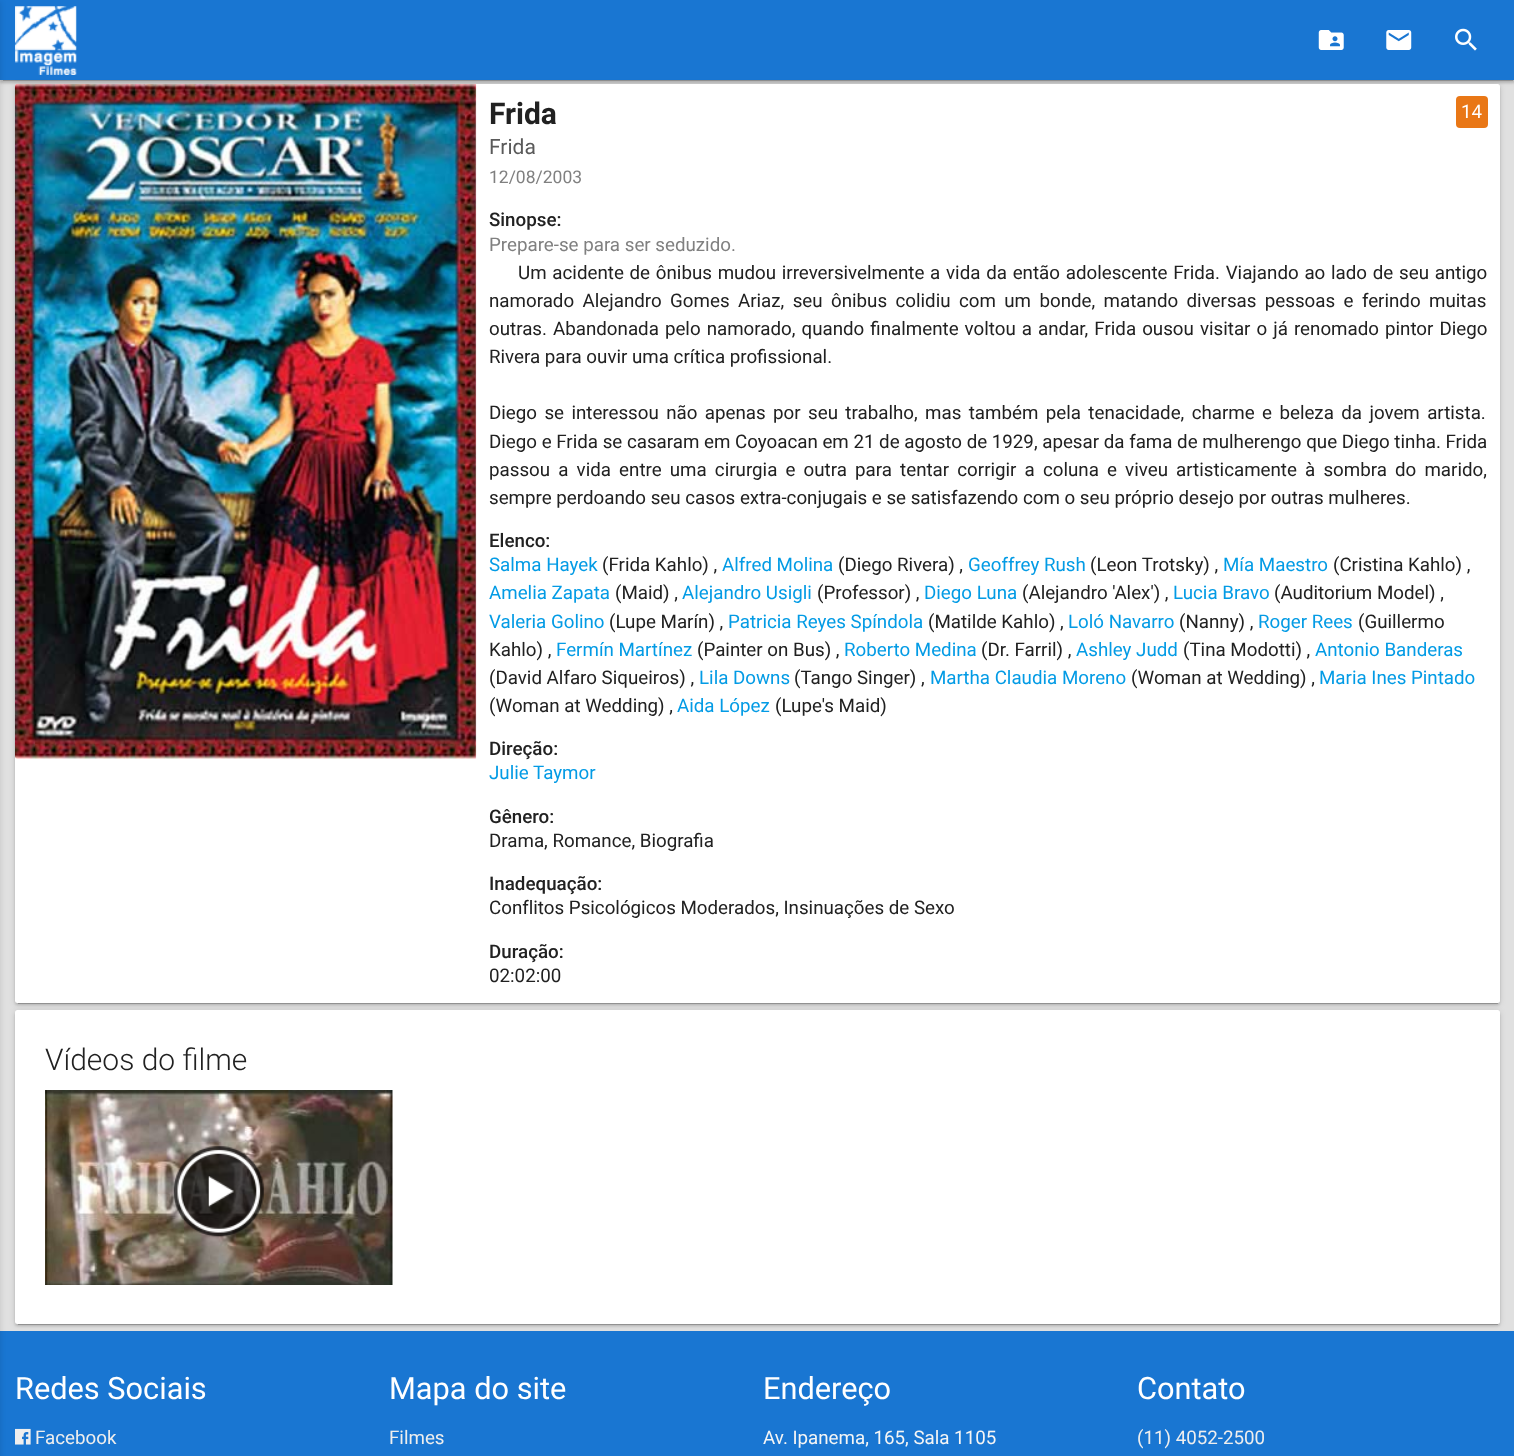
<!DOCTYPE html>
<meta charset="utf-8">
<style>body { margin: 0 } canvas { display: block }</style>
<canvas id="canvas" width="1514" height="1456"></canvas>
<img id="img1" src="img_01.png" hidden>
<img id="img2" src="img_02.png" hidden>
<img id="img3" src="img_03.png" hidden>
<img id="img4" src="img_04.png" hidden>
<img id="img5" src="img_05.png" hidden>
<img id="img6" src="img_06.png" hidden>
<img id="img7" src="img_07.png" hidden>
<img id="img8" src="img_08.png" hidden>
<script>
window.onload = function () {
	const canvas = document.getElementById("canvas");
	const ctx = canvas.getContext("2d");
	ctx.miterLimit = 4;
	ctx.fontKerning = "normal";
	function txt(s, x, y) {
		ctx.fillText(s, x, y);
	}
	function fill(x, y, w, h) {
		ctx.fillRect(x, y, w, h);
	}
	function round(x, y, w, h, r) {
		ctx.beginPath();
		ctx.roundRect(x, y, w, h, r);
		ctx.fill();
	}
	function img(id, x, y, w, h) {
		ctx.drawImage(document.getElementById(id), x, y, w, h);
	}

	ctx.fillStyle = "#E0E0E0";
	fill(0, 0, 1514, 1456);
	ctx.fillStyle = "rgba(0, 0, 0, 0.2)";
	ctx.filter = "blur(0.5px)";
	ctx.beginPath();
	ctx.rect(3, 6, 1510, 75);
	ctx.fill();
	ctx.filter = "none";
	ctx.fillStyle = "rgba(0, 0, 0, 0.12)";
	ctx.filter = "blur(3px)";
	ctx.beginPath();
	ctx.rect(0, 1, 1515, 80);
	ctx.fill();
	ctx.filter = "none";
	ctx.fillStyle = "rgba(0, 0, 0, 0.14)";
	ctx.filter = "blur(1px)";
	ctx.beginPath();
	ctx.rect(0, 3, 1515, 80);
	ctx.fill();
	ctx.filter = "none";
	ctx.fillStyle = "#1976D2";
	fill(0, 0, 1514, 80);
	fill(0, 1331, 1514, 125);
	ctx.fillStyle = "rgba(0, 0, 0, 0.12)";
	ctx.filter = "blur(3px)";
	ctx.beginPath();
	ctx.rect(-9, 1, 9, 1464);
	ctx.fill();
	ctx.filter = "none";
	img("img1", 15, 6, 62, 69);
	img("img2", 1318, 30, 26, 20);
	img("img3", 1386, 30, 26, 20);
	img("img4", 1455, 28, 22, 23);
	ctx.fillStyle = "rgba(0, 0, 0, 0.2)";
	ctx.filter = "blur(0.5px)";
	ctx.beginPath();
	ctx.rect(18, 90, 1480, 914);
	ctx.fill();
	ctx.filter = "none";
	ctx.fillStyle = "rgba(0, 0, 0, 0.12)";
	ctx.filter = "blur(3px)";
	ctx.beginPath();
	ctx.roundRect(15, 85, 1485, 919, 2.5);
	ctx.fill();
	ctx.filter = "none";
	ctx.fillStyle = "rgba(0, 0, 0, 0.14)";
	ctx.filter = "blur(1px)";
	ctx.beginPath();
	ctx.roundRect(15, 86, 1485, 919, 2.5);
	ctx.fill();
	ctx.filter = "none";
	ctx.fillStyle = "#FFFFFF";
	round(15, 84, 1485, 919, 2.5);
	img("img5", 15, 83, 462, 676);
	ctx.fillStyle = "#E97716";
	round(1456, 96, 32, 32, 4);
	ctx.fillStyle = "rgba(0, 0, 0, 0.2)";
	ctx.filter = "blur(0.5px)";
	ctx.beginPath();
	ctx.rect(18, 1016, 1480, 309);
	ctx.fill();
	ctx.filter = "none";
	ctx.fillStyle = "rgba(0, 0, 0, 0.12)";
	ctx.filter = "blur(3px)";
	ctx.beginPath();
	ctx.roundRect(15, 1011, 1485, 314, 2.5);
	ctx.fill();
	ctx.filter = "none";
	ctx.fillStyle = "rgba(0, 0, 0, 0.14)";
	ctx.filter = "blur(1px)";
	ctx.beginPath();
	ctx.roundRect(15, 1013, 1485, 313, 2.5);
	ctx.fill();
	ctx.filter = "none";
	ctx.fillStyle = "#FFFFFF";
	round(15, 1010, 1485, 314, 2.5);
	img("img6", 45, 1090, 348, 195);
	img("img7", 173, 1146, 91, 91);
	img("img8", 15, 1428, 16, 17);
	ctx.font = "bold 30px Roboto";
	ctx.fillStyle = "#212121";
	txt("Frida", 489, 124);
	ctx.font = "18.75px Roboto";
	ctx.fillStyle = "#FFFFFF";
	txt("14", 1461, 118);
	ctx.font = "21px Roboto";
	ctx.fillStyle = "#5A5A5A";
	txt("Frida", 489, 154);
	ctx.font = "17.5px Roboto";
	ctx.fillStyle = "#808080";
	txt("12/08/2003", 489, 183);
	ctx.font = "500 18.75px Roboto";
	ctx.fillStyle = "#212121";
	txt("Sinopse:", 489, 226);
	ctx.font = "18.75px Roboto";
	ctx.fillStyle = "#808080";
	txt("Prepare-se para ser seduzido.", 489, 251);
	ctx.wordSpacing = "1.1px";
	ctx.fillStyle = "#212121";
	txt("Um acidente de ônibus mudou irreversivelmente a vida da então adolescente Frida. Viajando ao lado de seu antigo", 518, 279);
	ctx.wordSpacing = "3.75px";
	txt("namorado Alejandro Gomes Ariaz, seu ônibus colidiu com um bonde, matando diversas pessoas e ferindo muitas", 489, 307);
	ctx.wordSpacing = "1.4px";
	txt("outras. Abandonada pelo namorado, quando finalmente voltou a andar, Frida ousou visitar o já renomado pintor Diego", 489, 335);
	ctx.wordSpacing = "0px";
	txt("Rivera para ouvir uma crítica profissional.", 489, 363);
	ctx.wordSpacing = "2.75px";
	txt("Diego se interessou não apenas por seu trabalho, mas também pela tenacidade, charme e beleza da jovem artista.", 489, 419);
	ctx.wordSpacing = "0px";
	txt("Diego e Frida se casaram em Coyoacan em 21 de agosto de 1929, apesar da fama de mulherengo que Diego tinha. Frida", 489, 448);
	ctx.wordSpacing = "3.5px";
	txt("passou a vida entre uma cirurgia e outra para tentar corrigir a coluna e viveu artisticamente à sombra do marido,", 489, 476);
	ctx.wordSpacing = "0px";
	txt("sempre perdoando seu casos extra-conjugais e se satisfazendo com o seu próprio desejo por outras mulheres.", 489, 504);
	ctx.font = "500 18.75px Roboto";
	txt("Elenco:", 489, 547);
	ctx.font = "18.75px Roboto";
	ctx.fillStyle = "#039BE5";
	txt("Salma Hayek", 489, 571);
	ctx.fillStyle = "#212121";
	txt("(Frida Kahlo) ,", 602, 571);
	ctx.fillStyle = "#039BE5";
	txt("Alfred Molina", 722, 571);
	ctx.fillStyle = "#212121";
	txt("(Diego Rivera) ,", 838, 571);
	ctx.fillStyle = "#039BE5";
	txt("Geoffrey Rush", 968, 571);
	ctx.fillStyle = "#212121";
	txt("(Leon Trotsky) ,", 1090, 571);
	ctx.fillStyle = "#039BE5";
	txt("Mía Maestro", 1223, 571);
	ctx.fillStyle = "#212121";
	txt("(Cristina Kahlo) ,", 1333, 571);
	ctx.fillStyle = "#039BE5";
	txt("Amelia Zapata", 489, 599);
	ctx.fillStyle = "#212121";
	txt("(Maid) ,", 615, 599);
	ctx.fillStyle = "#039BE5";
	txt("Alejandro Usigli", 682, 599);
	ctx.fillStyle = "#212121";
	txt("(Professor) ,", 817, 599);
	ctx.fillStyle = "#039BE5";
	txt("Diego Luna", 924, 599);
	ctx.fillStyle = "#212121";
	txt("(Alejandro 'Alex') ,", 1022, 599);
	ctx.fillStyle = "#039BE5";
	txt("Lucia Bravo", 1173, 599);
	ctx.fillStyle = "#212121";
	txt("(Auditorium Model) ,", 1274, 599);
	ctx.fillStyle = "#039BE5";
	txt("Valeria Golino", 489, 628);
	ctx.fillStyle = "#212121";
	txt("(Lupe Marín) ,", 609, 628);
	ctx.fillStyle = "#039BE5";
	txt("Patricia Reyes Spíndola", 728, 628);
	ctx.fillStyle = "#212121";
	txt("(Matilde Kahlo) ,", 928, 628);
	ctx.fillStyle = "#039BE5";
	txt("Loló Navarro", 1068, 628);
	ctx.fillStyle = "#212121";
	txt("(Nanny) ,", 1179, 628);
	ctx.fillStyle = "#039BE5";
	txt("Roger Rees", 1258, 628);
	ctx.fillStyle = "#212121";
	txt("(Guillermo", 1358, 628);
	txt("Kahlo) ,", 489, 656);
	ctx.fillStyle = "#039BE5";
	txt("Fermín Martínez", 556, 656);
	ctx.fillStyle = "#212121";
	txt("(Painter on Bus) ,", 697, 656);
	ctx.fillStyle = "#039BE5";
	txt("Roberto Medina", 844, 656);
	ctx.fillStyle = "#212121";
	txt("(Dr. Farril) ,", 981, 656);
	ctx.fillStyle = "#039BE5";
	txt("Ashley Judd", 1076, 656);
	ctx.fillStyle = "#212121";
	txt("(Tina Modotti) ,", 1183, 656);
	ctx.fillStyle = "#039BE5";
	txt("Antonio Banderas", 1315, 656);
	ctx.fillStyle = "#212121";
	txt("(David Alfaro Siqueiros) ,", 489, 684);
	ctx.fillStyle = "#039BE5";
	txt("Lila Downs", 699, 684);
	ctx.fillStyle = "#212121";
	txt("(Tango Singer) ,", 794, 684);
	ctx.fillStyle = "#039BE5";
	txt("Martha Claudia Moreno", 930, 684);
	ctx.fillStyle = "#212121";
	txt("(Woman at Wedding) ,", 1131, 684);
	ctx.fillStyle = "#039BE5";
	txt("Maria Ines Pintado", 1319, 684);
	ctx.fillStyle = "#212121";
	txt("(Woman at Wedding) ,", 489, 712);
	ctx.fillStyle = "#039BE5";
	txt("Aida López", 677, 712);
	ctx.fillStyle = "#212121";
	txt("(Lupe's Maid)", 775, 712);
	ctx.font = "500 18.75px Roboto";
	txt("Direção:", 489, 755);
	ctx.font = "18.75px Roboto";
	ctx.fillStyle = "#039BE5";
	txt("Julie Taymor", 489, 779);
	ctx.font = "500 18.75px Roboto";
	ctx.fillStyle = "#212121";
	txt("Gênero:", 489, 823);
	ctx.font = "18.75px Roboto";
	txt("Drama, Romance, Biografia", 489, 847);
	ctx.font = "500 18.75px Roboto";
	txt("Inadequação:", 489, 890);
	ctx.font = "18.75px Roboto";
	txt("Conflitos Psicológicos Moderados, Insinuações de Sexo", 489, 914);
	ctx.font = "500 18.75px Roboto";
	txt("Duração:", 489, 958);
	ctx.font = "18.75px Roboto";
	txt("02:02:00", 489, 982);
	ctx.font = "300 30px Roboto";
	txt("Vídeos do filme", 45, 1070);
	ctx.font = "30.75px Roboto";
	ctx.fillStyle = "#FFFFFF";
	txt("Redes Sociais", 15, 1399);
	ctx.font = "18.75px Roboto";
	ctx.fillStyle = "#EEEEEE";
	txt("Facebook", 35, 1444);
	ctx.font = "30.75px Roboto";
	ctx.fillStyle = "#FFFFFF";
	txt("Mapa do site", 389, 1399);
	ctx.font = "18.75px Roboto";
	ctx.fillStyle = "#EEEEEE";
	txt("Filmes", 389, 1444);
	ctx.font = "30.75px Roboto";
	ctx.fillStyle = "#FFFFFF";
	txt("Endereço", 763, 1399);
	ctx.font = "18.75px Roboto";
	ctx.fillStyle = "#F5F5F5";
	txt("Av. Ipanema, 165, Sala 1105", 763, 1444);
	ctx.font = "30.75px Roboto";
	ctx.fillStyle = "#FFFFFF";
	txt("Contato", 1137, 1399);
	ctx.font = "18.75px Roboto";
	ctx.fillStyle = "#EEEEEE";
	txt("(11) 4052-2500", 1137, 1444);
};
</script>
